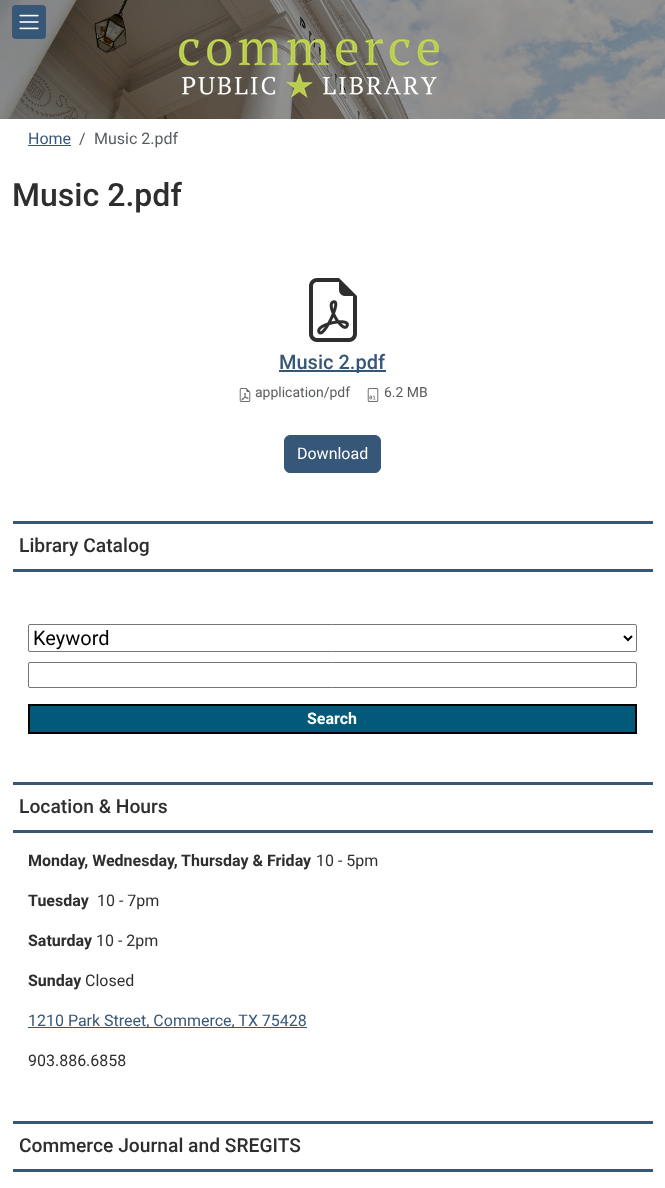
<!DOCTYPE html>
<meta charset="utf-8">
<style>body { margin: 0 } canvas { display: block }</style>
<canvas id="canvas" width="665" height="1188"></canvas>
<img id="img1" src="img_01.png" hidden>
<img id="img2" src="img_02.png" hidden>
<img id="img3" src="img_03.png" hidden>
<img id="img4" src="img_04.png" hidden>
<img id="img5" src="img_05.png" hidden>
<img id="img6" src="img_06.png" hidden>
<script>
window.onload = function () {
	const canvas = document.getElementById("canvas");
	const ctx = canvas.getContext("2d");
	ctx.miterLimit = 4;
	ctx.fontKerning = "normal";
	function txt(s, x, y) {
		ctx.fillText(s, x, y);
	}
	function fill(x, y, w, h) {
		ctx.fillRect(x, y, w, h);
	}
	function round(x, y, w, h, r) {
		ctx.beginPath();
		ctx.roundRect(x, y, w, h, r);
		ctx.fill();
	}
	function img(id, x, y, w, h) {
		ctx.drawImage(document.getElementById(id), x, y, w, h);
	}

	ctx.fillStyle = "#FFFFFF";
	fill(0, 0, 665, 1188);
	img("img1", 0, 0, 665, 119);
	ctx.fillStyle = "#375779";
	round(12, 5, 34, 34, 4);
	img("img2", 19, 14, 20, 16);
	img("img3", 179, 39, 260, 59);
	fill(28, 145, 43, 1);
	img("img4", 309, 278, 48, 64);
	fill(279, 370, 107, 2);
	img("img5", 239, 388, 12, 14);
	img("img6", 367, 388, 12, 14);
	ctx.beginPath();
	ctx.roundRect(284.5, 435.5, 96, 37, 5.5);
	ctx.fill();
	ctx.strokeStyle = "#375779";
	ctx.stroke();
	fill(13, 521, 640, 3);
	fill(13, 569, 640, 3);
	ctx.beginPath();
	ctx.roundRect(28.5, 624.5, 608, 27, 1.5);
	ctx.strokeStyle = "#767676";
	ctx.stroke();
	ctx.beginPath();
	ctx.moveTo(624, 636);
	ctx.lineTo(628, 640);
	ctx.lineTo(632, 636);
	ctx.strokeStyle = "#000000";
	ctx.lineWidth = 2;
	ctx.stroke();
	ctx.beginPath();
	ctx.roundRect(28.5, 662.5, 608, 25, 1.5);
	ctx.strokeStyle = "#767676";
	ctx.lineWidth = 1;
	ctx.stroke();
	ctx.fillStyle = "#03597A";
	ctx.beginPath();
	ctx.rect(29, 705, 607, 28);
	ctx.fill();
	ctx.strokeStyle = "#000000";
	ctx.lineWidth = 2;
	ctx.stroke();
	ctx.fillStyle = "#375779";
	fill(13, 782, 640, 3);
	fill(13, 830, 640, 3);
	fill(28, 1027, 279, 1);
	fill(13, 1121, 640, 3);
	fill(13, 1169, 640, 3);
	ctx.font = "16px Roboto";
	txt("Home", 28, 144);
	ctx.fillStyle = "#595C5F";
	txt("/", 79, 144);
	txt("Music 2.pdf", 94, 144);
	ctx.font = "500 32px Roboto";
	ctx.fillStyle = "#2E2E2E";
	txt("Music 2.pdf", 12, 206);
	ctx.font = "500 20px Roboto";
	ctx.fillStyle = "#375779";
	txt("Music 2.pdf", 279, 369);
	ctx.font = "14px Roboto";
	ctx.fillStyle = "#595C5F";
	txt("application/pdf", 255, 397);
	txt("6.2 MB", 384, 397);
	ctx.font = "16px Roboto";
	ctx.fillStyle = "#FFFFFF";
	txt("Download", 297, 459);
	ctx.font = "500 19.25px Roboto";
	ctx.fillStyle = "#2E2E2E";
	txt("Library Catalog", 19, 552);
	ctx.font = "20px Roboto";
	ctx.fillStyle = "#000000";
	txt("Keyword", 33, 645);
	ctx.font = "bold 16px Roboto";
	ctx.fillStyle = "#FFFFFF";
	txt("Search", 307, 724);
	ctx.font = "500 19.25px Roboto";
	ctx.fillStyle = "#2E2E2E";
	txt("Location & Hours", 19, 813);
	ctx.font = "bold 16px Roboto";
	txt("Monday, Wednesday, Thursday & Friday", 28, 866);
	ctx.font = "16px Roboto";
	txt("10 - 5pm", 316, 866);
	ctx.font = "bold 16px Roboto";
	txt("Tuesday", 28, 906);
	ctx.font = "16px Roboto";
	txt("10 - 7pm", 97, 906);
	ctx.font = "bold 16px Roboto";
	txt("Saturday", 28, 946);
	ctx.font = "16px Roboto";
	txt("10 - 2pm", 96, 946);
	ctx.font = "bold 16px Roboto";
	txt("Sunday", 28, 986);
	ctx.font = "16px Roboto";
	txt("Closed", 85, 986);
	ctx.fillStyle = "#375779";
	txt("1210 Park Street, Commerce, TX 75428", 28, 1026);
	ctx.fillStyle = "#2E2E2E";
	txt("903.886.6858", 28, 1066);
	ctx.font = "500 19.25px Roboto";
	txt("Commerce Journal and SREGITS", 19, 1152);
};
</script>
